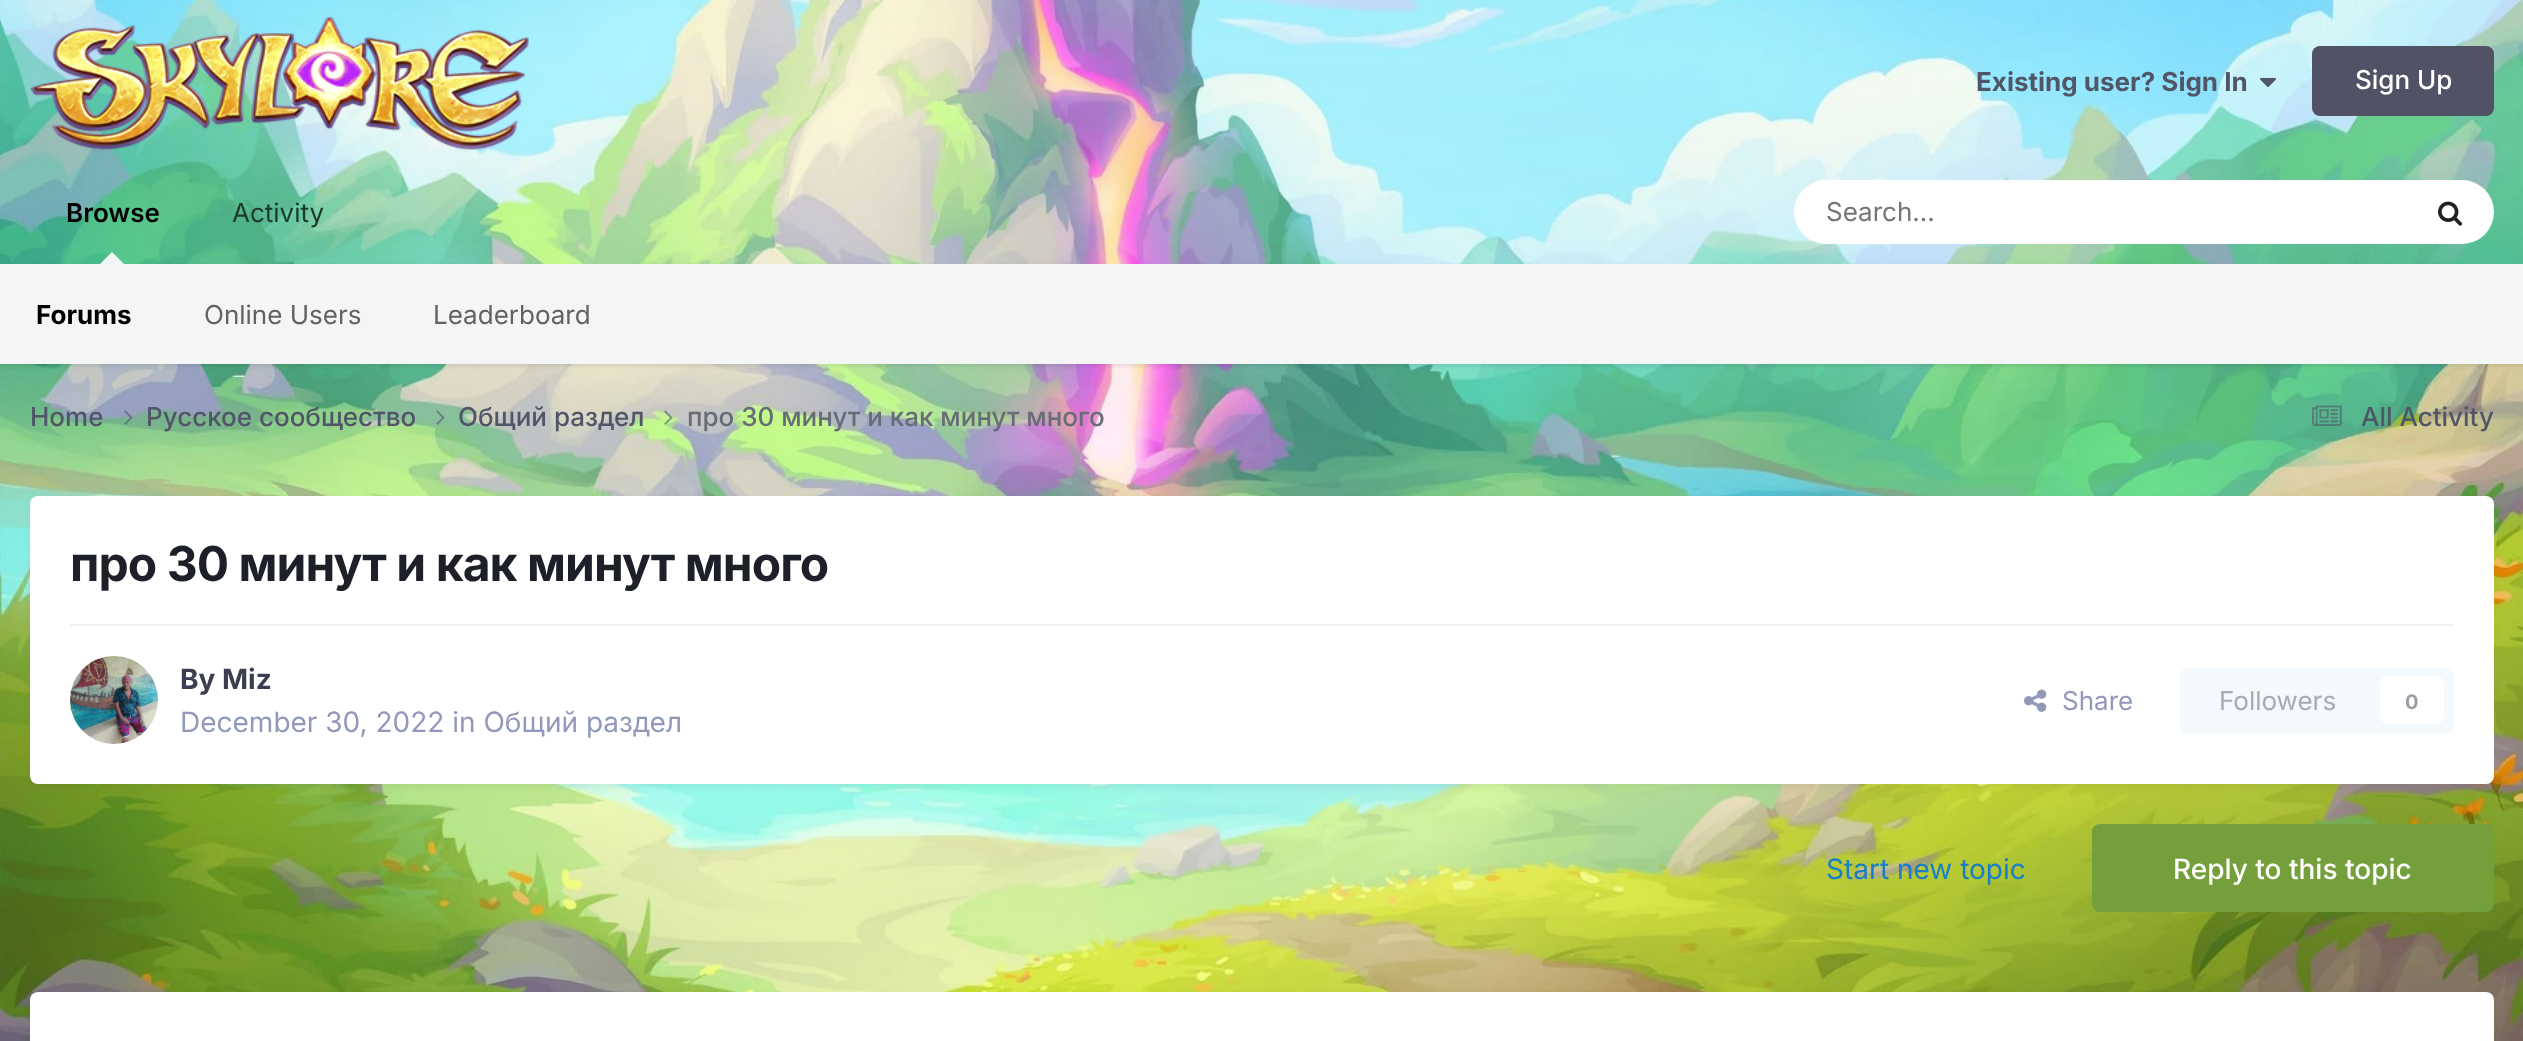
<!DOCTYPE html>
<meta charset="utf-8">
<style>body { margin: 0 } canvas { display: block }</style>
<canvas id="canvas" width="2523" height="1041"></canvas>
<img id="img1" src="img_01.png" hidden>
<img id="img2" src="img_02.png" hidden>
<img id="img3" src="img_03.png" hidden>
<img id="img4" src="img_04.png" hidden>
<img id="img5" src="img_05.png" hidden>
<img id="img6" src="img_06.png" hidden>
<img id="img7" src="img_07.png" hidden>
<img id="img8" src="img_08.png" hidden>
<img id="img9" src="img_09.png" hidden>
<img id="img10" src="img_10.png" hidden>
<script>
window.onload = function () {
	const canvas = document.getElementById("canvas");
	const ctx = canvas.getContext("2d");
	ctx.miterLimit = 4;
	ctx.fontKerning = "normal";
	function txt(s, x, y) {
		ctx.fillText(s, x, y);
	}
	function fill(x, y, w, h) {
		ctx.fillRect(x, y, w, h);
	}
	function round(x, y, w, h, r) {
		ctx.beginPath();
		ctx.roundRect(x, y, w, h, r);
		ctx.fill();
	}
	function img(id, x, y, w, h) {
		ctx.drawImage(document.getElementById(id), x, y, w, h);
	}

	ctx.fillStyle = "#FFFFFF";
	fill(0, 0, 2523, 1041);
	img("img1", 0, 0, 2523, 1041);
	img("img2", 30, 17, 499, 133);
	img("img3", 2260, 78, 16, 9);
	ctx.fillStyle = "#525266";
	round(2312, 46, 182, 70, 8);
	ctx.fillStyle = "rgba(0, 0, 0, 0.1)";
	ctx.filter = "blur(2px)";
	ctx.beginPath();
	ctx.rect(0, 266, 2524, 100);
	ctx.fill();
	ctx.filter = "none";
	ctx.fillStyle = "#F3F6F4";
	ctx.beginPath();
	ctx.moveTo(124, 264);
	ctx.lineTo(100, 264);
	ctx.lineTo(112, 252);
	ctx.closePath();
	ctx.fill();
	ctx.fillStyle = "#FFFFFF";
	round(1794, 180, 700, 64, 32);
	img("img4", 2438, 201, 25, 25);
	ctx.fillStyle = "#F3F6F4";
	fill(0, 264, 2523, 100);
	img("img5", 124, 410, 9, 15);
	img("img6", 436, 410, 9, 15);
	img("img7", 664, 410, 9, 15);
	img("img8", 2312, 405, 30, 21);
	ctx.fillStyle = "rgba(59, 62, 79, 0.1)";
	ctx.filter = "blur(4px)";
	ctx.beginPath();
	ctx.roundRect(32, 502, 2460, 284, 6);
	ctx.fill();
	ctx.filter = "none";
	ctx.fillStyle = "#FFFFFF";
	round(30, 496, 2464, 288, 8);
	ctx.fillStyle = "#EFF0F1";
	fill(70, 624, 2384, 2);
	img("img9", 70, 656, 88, 88);
	img("img10", 2024, 689, 23, 23);
	ctx.fillStyle = "#F4F9FD";
	round(2180, 668, 274, 66, 8);
	ctx.fillStyle = "#FFFFFF";
	round(2380, 676, 64, 48, 8);
	ctx.fillStyle = "#759F3B";
	round(2092, 824, 402, 88, 8);
	ctx.fillStyle = "rgba(59, 62, 79, 0.1)";
	ctx.filter = "blur(4px)";
	ctx.beginPath();
	ctx.roundRect(32, 998, 2460, 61, 6);
	ctx.fill();
	ctx.filter = "none";
	ctx.fillStyle = "#FFFFFF";
	round(30, 992, 2464, 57, 8);
	ctx.font = "bold 26px Inter";
	ctx.fillStyle = "#515568";
	txt("Existing user? Sign In", 1976, 91);
	ctx.font = "500 26px Inter";
	ctx.fillStyle = "#FFFFFF";
	txt("Sign Up", 2355, 89);
	ctx.font = "26px Inter";
	ctx.fillStyle = "#1D392D";
	txt("Activity", 232, 222);
	ctx.font = "600 26px Inter";
	ctx.fillStyle = "#000000";
	txt("Browse", 66, 222);
	ctx.font = "bold 26px Inter";
	txt("Forums", 36, 324);
	ctx.font = "26px Inter";
	ctx.fillStyle = "#616262";
	txt("Online Users", 204, 324);
	txt("Leaderboard", 433, 324);
	ctx.fillStyle = "#757575";
	txt("Search...", 1826, 221);
	ctx.font = "500 26px Inter";
	ctx.fillStyle = "#515568";
	txt("Home", 30, 426);
	txt("Русское сообщество", 146, 426);
	txt("Общий раздел", 458, 426);
	ctx.fillStyle = "#676C76";
	txt("про 30 минут и как минут много", 687, 426);
	ctx.fillStyle = "#515568";
	txt("All Activity", 2361, 426);
	ctx.letterSpacing = "-0.95px";
	ctx.font = "bold 48px Inter";
	ctx.fillStyle = "#1E2029";
	txt("про 30 минут и как минут много", 70, 581);
	ctx.letterSpacing = "0px";
	ctx.font = "bold 28px Inter";
	ctx.fillStyle = "#3B3E4F";
	txt("By Miz", 180, 689);
	ctx.font = "28px Inter";
	ctx.fillStyle = "#9198BA";
	txt("December 30, 2022 in Общий раздел", 180, 732);
	ctx.font = "26px Inter";
	txt("Share", 2062, 710);
	ctx.fillStyle = "#A9A9B3";
	txt("Followers", 2219, 710);
	ctx.font = "bold 20px Inter";
	ctx.fillStyle = "#9D9FA7";
	txt("0", 2405, 709);
	ctx.font = "28px Inter";
	ctx.fillStyle = "#177EC9";
	txt("Start new topic", 1826, 879);
	ctx.font = "500 28px Inter";
	ctx.fillStyle = "#FFFFFF";
	txt("Reply to this topic", 2173, 879);
};
</script>
